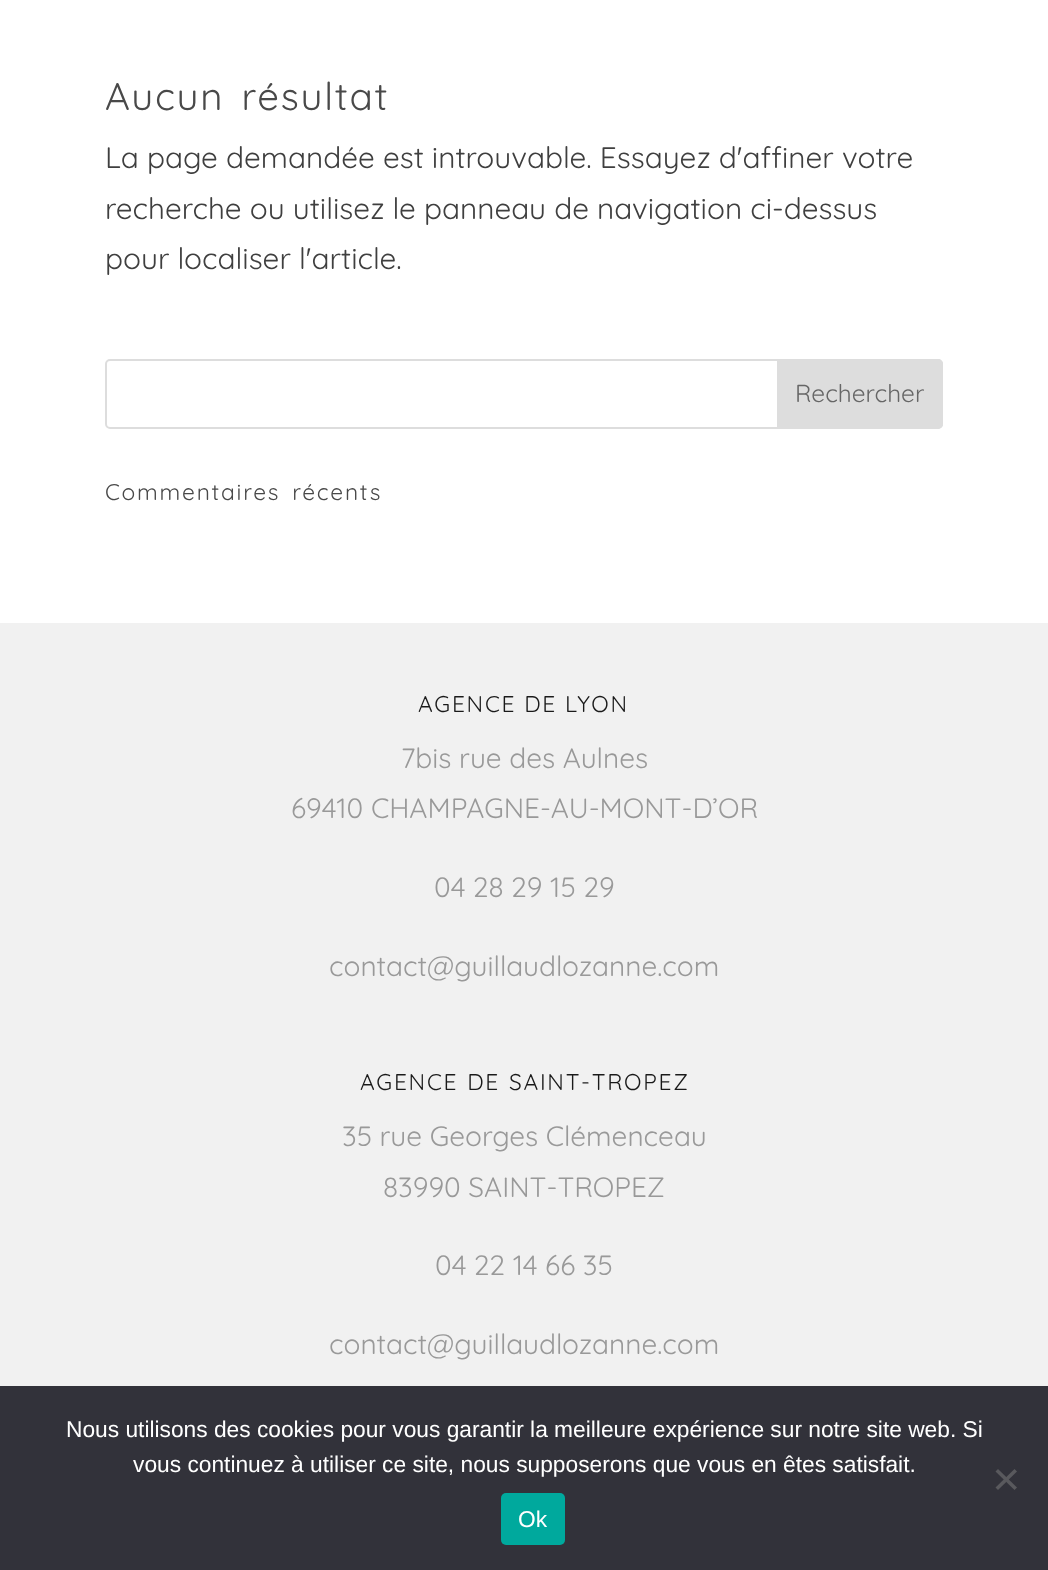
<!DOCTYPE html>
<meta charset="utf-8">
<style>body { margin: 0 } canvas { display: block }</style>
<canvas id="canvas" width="1048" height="1570"></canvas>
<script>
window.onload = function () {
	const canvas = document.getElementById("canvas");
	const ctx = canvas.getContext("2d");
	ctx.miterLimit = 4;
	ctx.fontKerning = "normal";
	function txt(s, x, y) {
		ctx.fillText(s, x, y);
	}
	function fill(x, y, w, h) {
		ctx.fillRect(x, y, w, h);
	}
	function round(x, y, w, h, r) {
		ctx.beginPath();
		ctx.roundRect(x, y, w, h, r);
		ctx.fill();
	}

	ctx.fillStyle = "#FFFFFF";
	fill(0, 0, 1048, 1570);
	ctx.beginPath();
	ctx.roundRect(106, 360, 836, 68, 4);
	ctx.strokeStyle = "#DDDDDD";
	ctx.lineWidth = 2;
	ctx.stroke();
	ctx.fillStyle = "#DDDDDD";
	ctx.beginPath();
	ctx.roundRect(778, 360, 164, 68, [0, 4, 4, 0]);
	ctx.fill();
	ctx.stroke();
	ctx.fillStyle = "#F1F1F1";
	fill(0, 623, 1048, 763);
	ctx.fillStyle = "#32323A";
	fill(0, 1386, 1048, 184);
	ctx.fillStyle = "#59595D";
	ctx.beginPath();
	ctx.moveTo(1014.5, 1469);
	ctx.lineTo(1017, 1471.5);
	ctx.lineTo(998, 1490);
	ctx.lineTo(995.5, 1487.5);
	ctx.closePath();
	ctx.fill();
	ctx.beginPath();
	ctx.moveTo(995.5, 1471.5);
	ctx.lineTo(998, 1469);
	ctx.lineTo(1017, 1487.5);
	ctx.lineTo(1014.5, 1490);
	ctx.closePath();
	ctx.fill();
	ctx.fillStyle = "#00A99D";
	round(501, 1493, 64, 52, 5);
	ctx.letterSpacing = "1.75px";
	ctx.wordSpacing = "5px";
	ctx.font = "38.5px Quicksand";
	ctx.fillStyle = "#494949";
	txt("Aucun résultat", 105, 110);
	ctx.letterSpacing = "0px";
	ctx.wordSpacing = "0px";
	ctx.font = "29.75px Quicksand";
	ctx.fillStyle = "#3F3F3F";
	txt("La page demandée est introuvable. Essayez d'affiner votre", 105, 168);
	txt("recherche ou utilisez le panneau de navigation ci-dessus", 105, 219);
	txt("pour localiser l'article.", 105, 269);
	ctx.font = "24.5px Quicksand";
	ctx.fillStyle = "#666666";
	txt("Rechercher", 795, 402);
	ctx.letterSpacing = "1.75px";
	ctx.wordSpacing = "4px";
	ctx.font = "22.75px Quicksand";
	ctx.fillStyle = "#494949";
	txt("Commentaires récents", 105, 500);
	ctx.wordSpacing = "0px";
	ctx.fillStyle = "#1A1A1A";
	txt("AGENCE DE LYON", 418, 712);
	ctx.letterSpacing = "0px";
	ctx.font = "28px Quicksand";
	ctx.fillStyle = "#999999";
	txt("7bis rue des Aulnes", 401, 768);
	txt("69410 CHAMPAGNE-AU-MONT-D’OR", 291, 818);
	txt("04 28 29 15 29", 434, 897);
	txt("contact@guillaudlozanne.com", 329, 976);
	ctx.letterSpacing = "1.75px";
	ctx.wordSpacing = "1px";
	ctx.font = "22.75px Quicksand";
	ctx.fillStyle = "#1A1A1A";
	txt("AGENCE DE SAINT-TROPEZ", 360, 1090);
	ctx.letterSpacing = "0px";
	ctx.wordSpacing = "0px";
	ctx.font = "28px Quicksand";
	ctx.fillStyle = "#999999";
	txt("35 rue Georges Clémenceau", 342, 1146);
	txt("83990 SAINT-TROPEZ", 383, 1197);
	txt("04 22 14 66 35", 435, 1275);
	txt("contact@guillaudlozanne.com", 329, 1354);
	ctx.font = "22.75px Liberation Sans";
	ctx.fillStyle = "#FFFFFF";
	txt("Nous utilisons des cookies pour vous garantir la meilleure expérience sur notre site web. Si", 66, 1437);
	txt("vous continuez à utiliser ce site, nous supposerons que vous en êtes satisfait.", 133, 1472);
	txt("Ok", 518, 1527);
};
</script>
